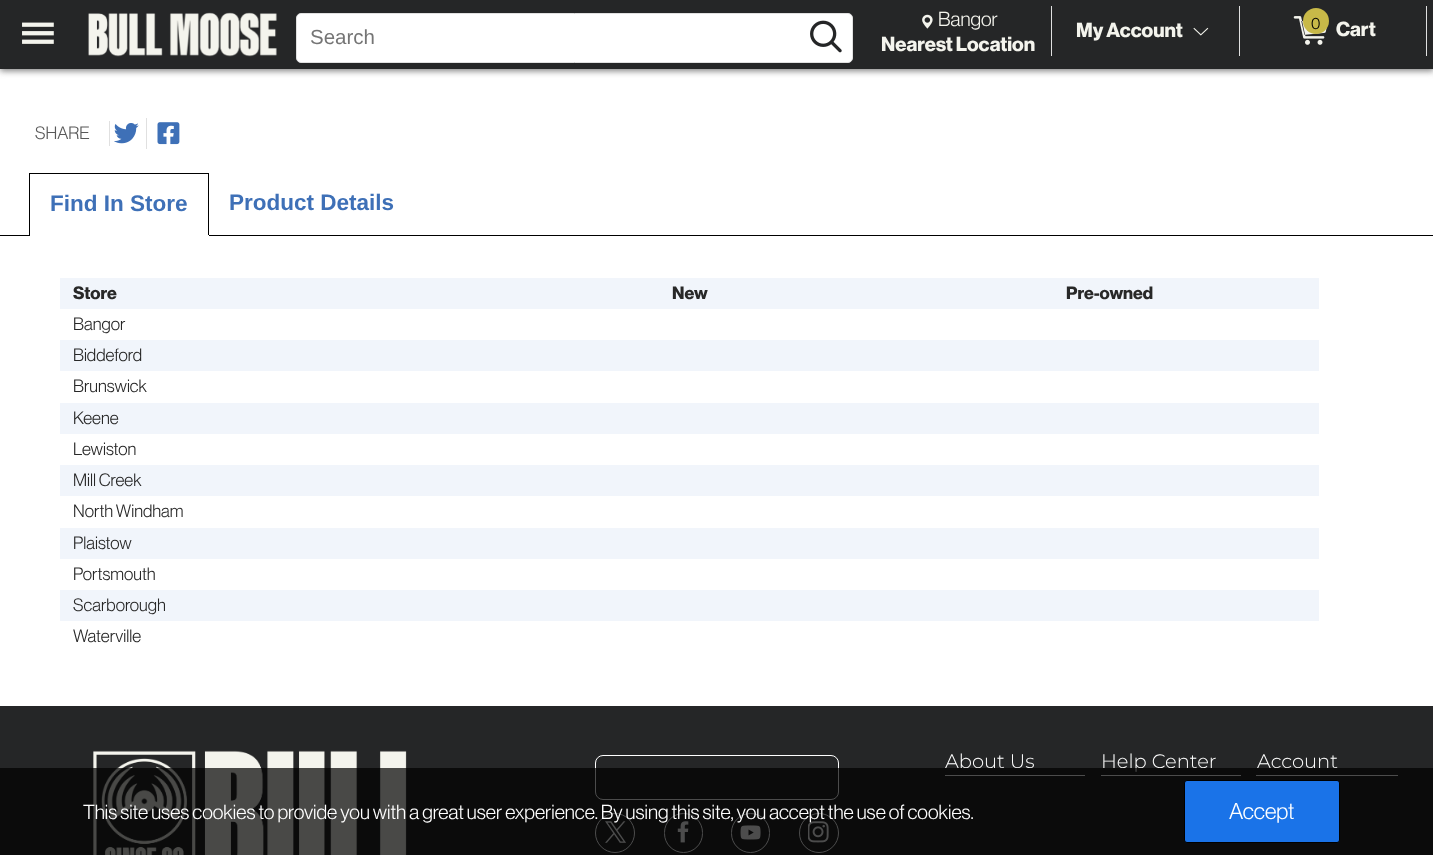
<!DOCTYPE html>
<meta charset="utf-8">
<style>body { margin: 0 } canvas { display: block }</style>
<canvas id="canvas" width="1433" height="855"></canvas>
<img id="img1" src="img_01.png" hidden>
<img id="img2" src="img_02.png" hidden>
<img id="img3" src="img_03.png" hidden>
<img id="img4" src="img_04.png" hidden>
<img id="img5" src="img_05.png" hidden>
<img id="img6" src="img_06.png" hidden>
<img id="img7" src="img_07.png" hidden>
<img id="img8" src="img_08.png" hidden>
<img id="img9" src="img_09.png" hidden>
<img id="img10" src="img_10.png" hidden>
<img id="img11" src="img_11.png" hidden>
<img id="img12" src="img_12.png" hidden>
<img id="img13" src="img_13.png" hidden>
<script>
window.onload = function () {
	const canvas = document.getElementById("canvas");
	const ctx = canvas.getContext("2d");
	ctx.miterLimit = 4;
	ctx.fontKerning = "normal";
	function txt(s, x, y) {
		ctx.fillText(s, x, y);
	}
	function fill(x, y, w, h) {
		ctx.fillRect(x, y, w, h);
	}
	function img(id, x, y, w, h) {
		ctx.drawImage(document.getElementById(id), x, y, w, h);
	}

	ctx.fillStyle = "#FFFFFF";
	fill(0, 0, 1433, 855);
	ctx.fillStyle = "#828282";
	ctx.filter = "blur(3px)";
	ctx.beginPath();
	ctx.rect(0, 3, 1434, 68);
	ctx.fill();
	ctx.filter = "none";
	ctx.fillStyle = "#252627";
	fill(0, 0, 1433, 69);
	img("img1", 22, 22, 32, 22);
	img("img2", 88, 12, 189, 45);
	ctx.fillStyle = "#FFFFFF";
	ctx.beginPath();
	ctx.roundRect(296.5, 13.5, 556, 49, 4.5);
	ctx.fill();
	ctx.strokeStyle = "#E0E0E0";
	ctx.stroke();
	img("img3", 810, 20, 32, 33);
	ctx.fillStyle = "#E0E0E0";
	fill(1051, 6, 1, 50);
	img("img4", 922, 14, 11, 15);
	fill(1239, 6, 1, 50);
	img("img5", 1193, 27, 16, 9);
	fill(1426, 6, 1, 50);
	img("img6", 1293, 16, 34, 29);
	ctx.fillStyle = "#C8B948";
	ctx.beginPath();
	ctx.arc(1316, 21, 13, 0, Math.PI * 2);
	ctx.fill();
	ctx.fillStyle = "#E0E0E0";
	fill(109, 121, 1, 25);
	img("img7", 114, 123, 25, 21);
	fill(146, 118, 1, 31);
	img("img8", 157, 122, 23, 23);
	ctx.fillStyle = "#000000";
	fill(29, 173, 180, 1);
	fill(0, 235, 1433, 1);
	fill(208, 173, 1, 63);
	ctx.fillStyle = "#FFFFFF";
	fill(29, 235, 180, 1);
	ctx.fillStyle = "#000000";
	fill(29, 173, 1, 63);
	ctx.fillStyle = "#F1F5FB";
	fill(60, 278, 1259, 31);
	fill(60, 340, 1259, 31);
	fill(60, 403, 1259, 31);
	fill(60, 465, 1259, 31);
	fill(60, 528, 1259, 31);
	fill(60, 590, 1259, 31);
	ctx.fillStyle = "#252627";
	fill(0, 706, 1433, 149);
	img("img9", 93, 750, 314, 105);
	ctx.beginPath();
	ctx.roundRect(595.5, 755.5, 243, 44, 7.5);
	ctx.strokeStyle = "#FFFFFF";
	ctx.stroke();
	ctx.beginPath();
	ctx.arc(615, 833, 19.5, 0, Math.PI * 2);
	ctx.stroke();
	img("img10", 605, 821, 21, 22);
	ctx.beginPath();
	ctx.roundRect(664.5, 813.5, 38, 39, 19);
	ctx.stroke();
	img("img11", 677, 821, 12, 22);
	ctx.beginPath();
	ctx.roundRect(731.5, 813.5, 38, 39, 19);
	ctx.stroke();
	img("img12", 740, 825, 21, 15);
	ctx.beginPath();
	ctx.arc(819, 833, 19.5, 0, Math.PI * 2);
	ctx.stroke();
	img("img13", 808, 821, 21, 22);
	ctx.fillStyle = "#FFFFFF";
	fill(945, 775, 140, 1);
	fill(1101, 775, 140, 1);
	fill(1256, 775, 142, 1);
	ctx.font = "20.5px Liberation Sans";
	ctx.fillStyle = "#757575";
	txt("Search", 310, 44);
	ctx.font = "20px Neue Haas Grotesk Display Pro";
	ctx.fillStyle = "#F4F4ED";
	txt("Bangor", 938, 26);
	ctx.font = "bold 20px Neue Haas Grotesk Display Pro";
	txt("Nearest Location", 881, 51);
	txt("My Account", 1076, 37);
	ctx.font = "16px Neue Haas Grotesk Display Pro";
	ctx.fillStyle = "#000000";
	txt("0", 1311, 29);
	ctx.font = "bold 20px Neue Haas Grotesk Display Pro";
	ctx.fillStyle = "#F4F4ED";
	txt("Cart", 1336, 36);
	ctx.font = "17.5px Neue Haas Grotesk Display Pro";
	ctx.fillStyle = "#595959";
	txt("SHARE", 35, 139);
	ctx.font = "bold 22.5px Liberation Sans";
	ctx.fillStyle = "#3E70B7";
	txt("Find In Store", 50, 211);
	txt("Product Details", 229, 210);
	ctx.font = "bold 17.5px Neue Haas Grotesk Display Pro";
	ctx.fillStyle = "#282828";
	txt("Store", 73, 299);
	txt("New", 672, 299);
	txt("Pre-owned", 1066, 299);
	ctx.font = "17.5px Neue Haas Grotesk Display Pro";
	txt("Bangor", 73, 330);
	txt("Biddeford", 73, 361);
	txt("Brunswick", 73, 392);
	txt("Keene", 73, 424);
	txt("Lewiston", 73, 455);
	txt("Mill Creek", 73, 486);
	txt("North Windham", 73, 517);
	txt("Plaistow", 73, 549);
	txt("Portsmouth", 73, 580);
	txt("Scarborough", 73, 611);
	txt("Waterville", 73, 642);
	ctx.font = "300 19.5px Montserrat";
	ctx.fillStyle = "#FFFFFF";
	txt("About Us", 945, 768);
	txt("Help Center", 1101, 768);
	txt("Account", 1257, 768);
	ctx.fillStyle = "rgba(0, 0, 0, 0.7)";
	fill(0, 768, 1433, 87);
	ctx.font = "20px Neue Haas Grotesk Display Pro";
	ctx.fillStyle = "#FFFFFF";
	txt("This site uses cookies to provide you with a great user experience. By using this site, you accept the use of cookies.", 83, 819);
	ctx.fillStyle = "#1A73E8";
	ctx.beginPath();
	ctx.roundRect(1184.5, 780.5, 155, 62, 2.5);
	ctx.fill();
	ctx.strokeStyle = "#000000";
	ctx.stroke();
	ctx.font = "22.5px Neue Haas Grotesk Display Pro";
	ctx.fillStyle = "#FFFFFF";
	txt("Accept", 1229, 819);
};
</script>
